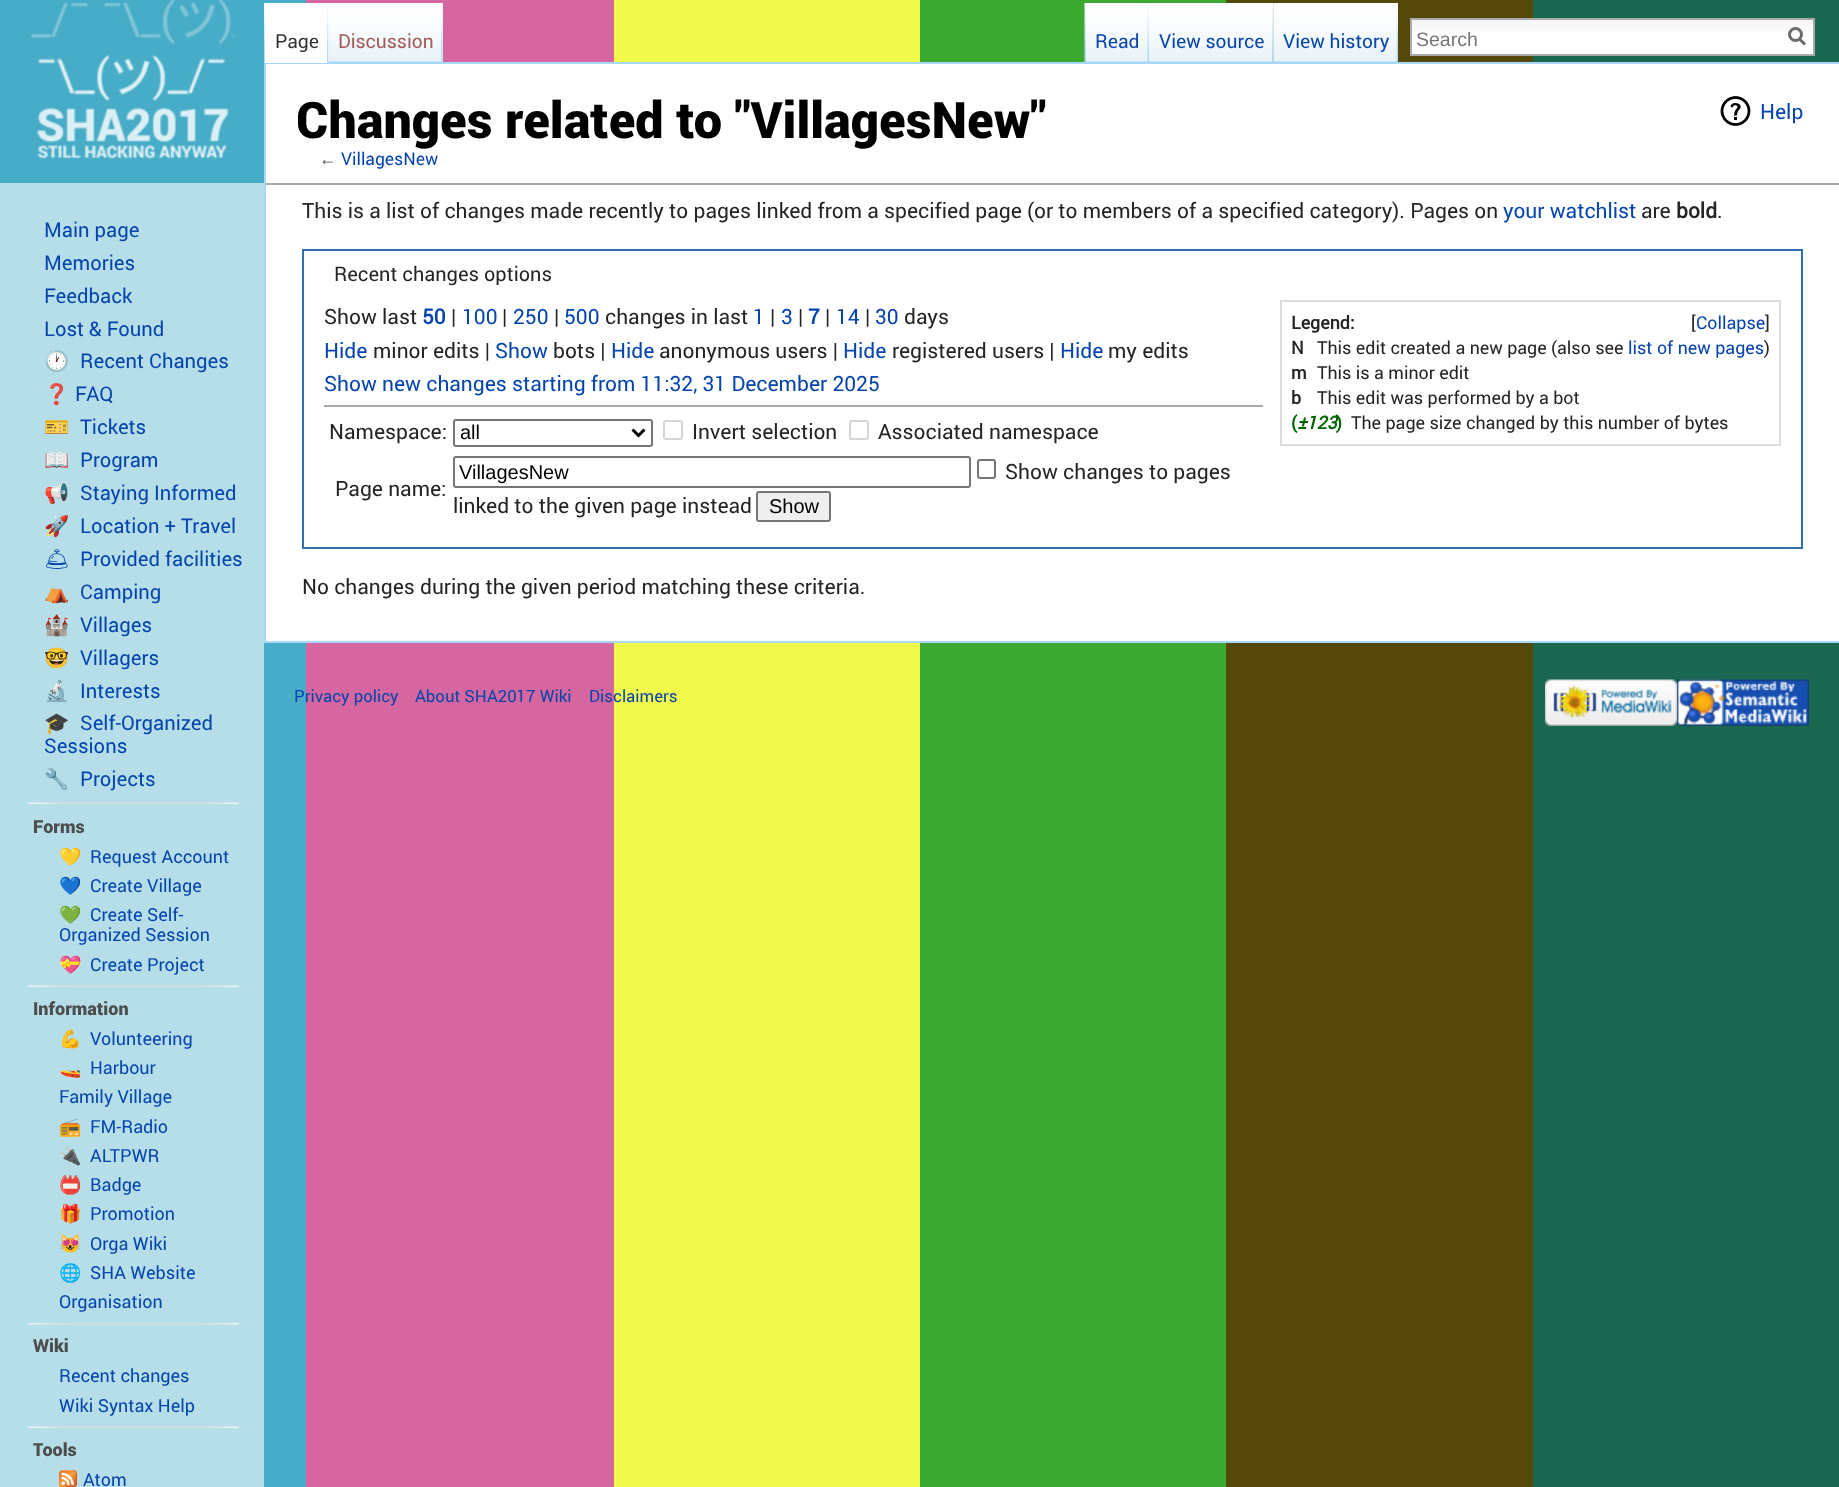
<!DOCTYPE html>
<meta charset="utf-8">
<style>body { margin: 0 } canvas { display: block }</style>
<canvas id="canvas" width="1839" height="1487"></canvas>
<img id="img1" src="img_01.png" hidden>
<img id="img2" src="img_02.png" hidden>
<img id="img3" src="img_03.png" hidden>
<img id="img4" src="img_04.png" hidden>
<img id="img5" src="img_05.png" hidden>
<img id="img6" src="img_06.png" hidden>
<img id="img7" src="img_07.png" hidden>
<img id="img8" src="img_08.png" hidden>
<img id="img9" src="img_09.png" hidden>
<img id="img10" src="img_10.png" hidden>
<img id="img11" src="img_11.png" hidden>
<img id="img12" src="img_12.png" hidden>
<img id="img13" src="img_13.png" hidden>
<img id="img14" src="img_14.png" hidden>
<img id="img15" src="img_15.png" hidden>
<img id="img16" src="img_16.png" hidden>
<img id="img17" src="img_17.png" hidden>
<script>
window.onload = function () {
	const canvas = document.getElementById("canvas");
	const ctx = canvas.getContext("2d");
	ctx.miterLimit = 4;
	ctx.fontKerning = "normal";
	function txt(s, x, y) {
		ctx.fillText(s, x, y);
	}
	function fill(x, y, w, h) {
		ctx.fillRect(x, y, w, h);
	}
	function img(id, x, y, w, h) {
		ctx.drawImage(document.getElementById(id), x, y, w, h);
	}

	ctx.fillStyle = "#46ACC7";
	fill(0, 0, 1839, 1487);
	ctx.fillStyle = "#D5669F";
	fill(306, 0, 308, 1487);
	ctx.fillStyle = "#F2FB4C";
	fill(614, 0, 306, 1487);
	ctx.fillStyle = "#3CAA31";
	fill(920, 0, 306, 1487);
	ctx.fillStyle = "#54490B";
	fill(1226, 0, 307, 1487);
	ctx.fillStyle = "#1B6851";
	fill(1533, 0, 306, 1487);
	img("img1", 264, 3, 1, 59);
	ctx.fillStyle = "#A7D7F9";
	fill(264, 62, 1575, 2);
	fill(264, 641, 1575, 2);
	fill(264, 62, 2, 580);
	ctx.fillStyle = "#FFFFFF";
	fill(265, 3, 64, 60);
	img("img2", 327, 4, 2, 59);
	ctx.fillStyle = "#F3F3F3";
	fill(442, 3, 1, 60);
	img("img3", 328, 3, 115, 60);
	img("img4", 441, 4, 2, 59);
	img("img5", 1084, 3, 2, 59);
	img("img6", 1086, 3, 63, 60);
	img("img7", 1147, 4, 2, 58);
	img("img8", 1149, 3, 125, 60);
	img("img4", 1272, 4, 2, 59);
	img("img9", 1273, 3, 125, 60);
	img("img7", 1396, 4, 2, 58);
	ctx.fillStyle = "#FFFFFF";
	fill(1412, 32, 401, 22);
	img("img10", 1412, 20, 401, 12);
	ctx.strokeStyle = "#AAAAAA";
	ctx.lineWidth = 2;
	ctx.strokeRect(1411, 19, 403, 36);
	ctx.beginPath();
	ctx.moveTo(1805, 44.5);
	ctx.lineTo(1799, 38.5);
	ctx.strokeStyle = "#6C6C6C";
	ctx.lineWidth = 3;
	ctx.stroke();
	ctx.beginPath();
	ctx.arc(1795.5, 34.5, 6, 0, Math.PI * 2);
	ctx.stroke();
	ctx.fillStyle = "#B5DEE9";
	fill(0, 183, 264, 1304);
	img("img11", 31, 0, 203, 160);
	img("img12", 28, 802, 211, 2);
	img("img12", 28, 985, 211, 2);
	img("img13", 28, 1323, 211, 2);
	img("img12", 28, 1426, 211, 2);
	img("img14", 59, 1470, 18, 17);
	ctx.fillStyle = "#FFFFFF";
	fill(266, 64, 1573, 577);
	ctx.fillStyle = "#AAAAAA";
	fill(266, 183, 1573, 2);
	img("img15", 1720, 96, 31, 30);
	ctx.strokeStyle = "#2F6FAB";
	ctx.lineWidth = 2;
	ctx.strokeRect(303, 250, 1499, 298);
	ctx.strokeStyle = "#DDDDDD";
	ctx.strokeRect(1281, 301, 499, 144);
	fill(324, 405, 939, 2);
	ctx.beginPath();
	ctx.roundRect(454, 420, 198, 26, 2);
	ctx.strokeStyle = "#767676";
	ctx.stroke();
	ctx.beginPath();
	ctx.moveTo(632.5, 429.5);
	ctx.lineTo(638.5, 435.5);
	ctx.lineTo(644.5, 429.5);
	ctx.strokeStyle = "#000000";
	ctx.lineWidth = 3;
	ctx.stroke();
	ctx.beginPath();
	ctx.roundRect(664, 421, 18, 18, 2);
	ctx.strokeStyle = "#D6D6D6";
	ctx.lineWidth = 2;
	ctx.stroke();
	ctx.beginPath();
	ctx.roundRect(850, 421, 18, 18, 2);
	ctx.stroke();
	ctx.beginPath();
	ctx.roundRect(454, 457, 516, 30, 2);
	ctx.strokeStyle = "#767676";
	ctx.stroke();
	ctx.beginPath();
	ctx.roundRect(978, 460, 17, 18, 2);
	ctx.stroke();
	ctx.fillStyle = "#EFEFEF";
	ctx.beginPath();
	ctx.roundRect(757, 492, 73, 29, 2);
	ctx.fill();
	ctx.stroke();
	img("img16", 1545, 679, 132, 47);
	img("img17", 1677, 679, 132, 47);
	ctx.font = "19.25px roboto";
	ctx.fillStyle = "#333333";
	txt("Page", 275, 48);
	ctx.fillStyle = "#A55858";
	txt("Discussion", 338, 48);
	ctx.fillStyle = "#0645AD";
	txt("Read", 1095, 48);
	txt("View source", 1159, 48);
	txt("View history", 1283, 48);
	ctx.font = "19.5px Liberation Sans";
	ctx.fillStyle = "#757575";
	txt("Search", 1416, 46);
	ctx.font = "20.25px roboto";
	ctx.fillStyle = "#0645AD";
	txt("Main page", 44, 237);
	txt("Memories", 44, 270);
	txt("Feedback", 44, 303);
	txt("Lost & Found", 44, 336);
	ctx.font = "20.25px Noto Color Emoji";
	txt("🕐", 44, 368);
	ctx.font = "20.25px roboto";
	txt("Recent Changes", 80, 368);
	ctx.font = "20.25px Noto Color Emoji";
	txt("❓", 44, 401);
	ctx.font = "20.25px roboto";
	txt("FAQ", 75, 401);
	ctx.font = "20.25px Noto Color Emoji";
	txt("🎫", 44, 434);
	ctx.font = "20.25px roboto";
	txt("Tickets", 80, 434);
	ctx.font = "20.25px Noto Color Emoji";
	txt("📖", 44, 467);
	ctx.font = "20.25px roboto";
	txt("Program", 80, 467);
	ctx.font = "20.25px Noto Color Emoji";
	txt("📢", 44, 500);
	ctx.font = "20.25px roboto";
	txt("Staying Informed", 80, 500);
	ctx.font = "20.25px Noto Color Emoji";
	txt("🚀", 44, 533);
	ctx.font = "20.25px roboto";
	txt("Location + Travel", 80, 533);
	ctx.font = "20.25px Noto Emoji";
	txt("🛎", 44, 566);
	ctx.font = "20.25px roboto";
	txt("Provided facilities", 80, 566);
	ctx.font = "20.25px Noto Color Emoji";
	txt("⛺️", 44, 599);
	ctx.font = "20.25px roboto";
	txt("Camping", 80, 599);
	ctx.font = "20.25px Noto Color Emoji";
	txt("🏰", 44, 632);
	ctx.font = "20.25px roboto";
	txt("Villages", 80, 632);
	ctx.font = "20.25px Noto Color Emoji";
	txt("🤓", 44, 665);
	ctx.font = "20.25px roboto";
	txt("Villagers", 80, 665);
	ctx.font = "20.25px Noto Color Emoji";
	txt("🔬", 44, 698);
	ctx.font = "20.25px roboto";
	txt("Interests", 80, 698);
	ctx.font = "20.25px Noto Color Emoji";
	txt("🎓", 44, 730);
	ctx.font = "20.25px roboto";
	txt("Self-Organized", 80, 730);
	txt("Sessions", 44, 753);
	ctx.font = "20.25px Noto Color Emoji";
	txt("🔧", 44, 786);
	ctx.font = "20.25px roboto";
	txt("Projects", 80, 786);
	ctx.font = "900 18px Roboto";
	ctx.fillStyle = "#4D4D4D";
	txt("Forms", 33, 833);
	ctx.font = "18px Noto Color Emoji";
	ctx.fillStyle = "#0645AD";
	txt("💛", 59, 863);
	ctx.font = "18px roboto";
	txt("Request Account", 90, 863);
	ctx.font = "18px Noto Color Emoji";
	txt("💙", 59, 892);
	ctx.font = "18px roboto";
	txt("Create Village", 90, 892);
	ctx.font = "18px Noto Color Emoji";
	txt("💚", 59, 921);
	ctx.font = "18px roboto";
	txt("Create Self-", 90, 921);
	txt("Organized Session", 59, 941);
	ctx.font = "18px Noto Color Emoji";
	txt("💝", 59, 971);
	ctx.font = "18px roboto";
	txt("Create Project", 90, 971);
	ctx.font = "900 18px Roboto";
	ctx.fillStyle = "#4D4D4D";
	txt("Information", 33, 1015);
	ctx.font = "18px Noto Color Emoji";
	ctx.fillStyle = "#0645AD";
	txt("💪", 59, 1045);
	ctx.font = "18px roboto";
	txt("Volunteering", 90, 1045);
	ctx.font = "18px Noto Color Emoji";
	txt("🚤", 59, 1074);
	ctx.font = "18px roboto";
	txt("Harbour", 90, 1074);
	txt("Family Village", 59, 1103);
	ctx.font = "18px Noto Color Emoji";
	txt("📻", 59, 1133);
	ctx.font = "18px roboto";
	txt("FM-Radio", 90, 1133);
	ctx.font = "18px Noto Color Emoji";
	txt("🔌", 59, 1162);
	ctx.font = "18px roboto";
	txt("ALTPWR", 90, 1162);
	ctx.font = "18px Noto Color Emoji";
	txt("📛", 59, 1191);
	ctx.font = "18px roboto";
	txt("Badge", 90, 1191);
	ctx.font = "18px Noto Color Emoji";
	txt("🎁", 59, 1220);
	ctx.font = "18px roboto";
	txt("Promotion", 90, 1220);
	ctx.font = "18px Noto Color Emoji";
	txt("😻", 59, 1250);
	ctx.font = "18px roboto";
	txt("Orga Wiki", 90, 1250);
	ctx.font = "18px Noto Color Emoji";
	txt("🌐", 59, 1279);
	ctx.font = "18px roboto";
	txt("SHA Website", 90, 1279);
	txt("Organisation", 59, 1308);
	ctx.font = "900 18px Roboto";
	ctx.fillStyle = "#4D4D4D";
	txt("Wiki", 33, 1352);
	ctx.font = "18px roboto";
	ctx.fillStyle = "#0645AD";
	txt("Recent changes", 59, 1382);
	txt("Wiki Syntax Help", 59, 1412);
	ctx.font = "900 18px Roboto";
	ctx.fillStyle = "#4D4D4D";
	txt("Tools", 33, 1456);
	ctx.font = "18px roboto";
	ctx.fillStyle = "#0645AD";
	txt("Atom", 83, 1486);
	ctx.font = "900 50.4px Roboto";
	ctx.fillStyle = "#000000";
	txt("Changes related to \"VillagesNew\"", 296, 138);
	ctx.font = "21px roboto";
	ctx.fillStyle = "#0645AD";
	txt("Help", 1760, 119);
	ctx.font = "17.5px Liberation Serif";
	ctx.fillStyle = "#545454";
	txt("←", 319, 165);
	ctx.font = "17.5px roboto";
	ctx.fillStyle = "#0645AD";
	txt("VillagesNew", 341, 165);
	ctx.font = "21px roboto";
	ctx.fillStyle = "#252525";
	txt("This is a list of changes made recently to pages linked from a specified page (or to members of a specified category). Pages on", 302, 218);
	ctx.fillStyle = "#0645AD";
	txt("your watchlist", 1503, 218);
	ctx.fillStyle = "#252525";
	txt("are", 1641, 218);
	ctx.font = "bold 21px roboto";
	txt("bold", 1676, 218);
	ctx.font = "21px roboto";
	txt(".", 1717, 218);
	ctx.font = "20px roboto";
	txt("Recent changes options", 334, 281);
	ctx.font = "21px roboto";
	txt("Show last", 324, 324);
	ctx.font = "bold 21px roboto";
	ctx.fillStyle = "#0645AD";
	txt("50", 422, 324);
	ctx.font = "21px roboto";
	ctx.fillStyle = "#252525";
	txt("|", 451, 324);
	ctx.fillStyle = "#0645AD";
	txt("100", 462, 324);
	ctx.fillStyle = "#252525";
	txt("|", 502, 324);
	ctx.fillStyle = "#0645AD";
	txt("250", 513, 324);
	ctx.fillStyle = "#252525";
	txt("|", 554, 324);
	ctx.fillStyle = "#0645AD";
	txt("500", 564, 324);
	ctx.fillStyle = "#252525";
	txt("changes in last", 605, 324);
	ctx.fillStyle = "#0645AD";
	txt("1", 753, 324);
	ctx.fillStyle = "#252525";
	txt("|", 770, 324);
	ctx.fillStyle = "#0645AD";
	txt("3", 781, 324);
	ctx.fillStyle = "#252525";
	txt("|", 798, 324);
	ctx.font = "bold 21px roboto";
	ctx.fillStyle = "#0645AD";
	txt("7", 808, 324);
	ctx.font = "21px roboto";
	ctx.fillStyle = "#252525";
	txt("|", 825, 324);
	ctx.fillStyle = "#0645AD";
	txt("14", 836, 324);
	ctx.fillStyle = "#252525";
	txt("|", 865, 324);
	ctx.fillStyle = "#0645AD";
	txt("30", 875, 324);
	ctx.fillStyle = "#252525";
	txt("days", 904, 324);
	ctx.font = "bold 17.85px roboto";
	txt("Legend:", 1291, 329);
	ctx.font = "17.85px roboto";
	txt("[", 1691, 329);
	ctx.fillStyle = "#0645AD";
	txt("Collapse", 1696, 329);
	ctx.fillStyle = "#252525";
	txt("]", 1765, 329);
	ctx.font = "bold 17.85px roboto";
	txt("N", 1291, 354);
	ctx.font = "17.85px roboto";
	txt("This edit created a new page (also see", 1317, 354);
	ctx.fillStyle = "#0645AD";
	txt("list of new pages", 1628, 354);
	ctx.fillStyle = "#252525";
	txt(")", 1764, 354);
	ctx.font = "bold 17.85px roboto";
	txt("m", 1291, 379);
	ctx.font = "17.85px roboto";
	txt("This is a minor edit", 1317, 379);
	ctx.font = "bold 17.85px roboto";
	txt("b", 1291, 404);
	ctx.font = "17.85px roboto";
	txt("This edit was performed by a bot", 1317, 404);
	ctx.font = "bold 17.85px roboto";
	ctx.fillStyle = "#006400";
	txt("(", 1291, 429);
	ctx.font = "italic bold 17.85px roboto";
	txt("±123", 1297, 429);
	ctx.font = "bold 17.85px roboto";
	txt(")", 1336, 429);
	ctx.font = "17.85px roboto";
	ctx.fillStyle = "#252525";
	txt("The page size changed by this number of bytes", 1351, 429);
	ctx.font = "21px roboto";
	ctx.fillStyle = "#0645AD";
	txt("Hide", 324, 358);
	ctx.fillStyle = "#252525";
	txt("minor edits |", 373, 358);
	ctx.fillStyle = "#0645AD";
	txt("Show", 495, 358);
	ctx.fillStyle = "#252525";
	txt("bots |", 553, 358);
	ctx.fillStyle = "#0645AD";
	txt("Hide", 611, 358);
	ctx.fillStyle = "#252525";
	txt("anonymous users |", 659, 358);
	ctx.fillStyle = "#0645AD";
	txt("Hide", 843, 358);
	ctx.fillStyle = "#252525";
	txt("registered users |", 892, 358);
	ctx.fillStyle = "#0645AD";
	txt("Hide", 1060, 358);
	ctx.fillStyle = "#252525";
	txt("my edits", 1108, 358);
	ctx.fillStyle = "#0645AD";
	txt("Show new changes starting from 11:32, 31 December 2025", 324, 391);
	ctx.fillStyle = "#252525";
	txt("Namespace:", 329, 439);
	ctx.font = "20px Liberation Sans";
	ctx.fillStyle = "#000000";
	txt("all", 460, 439);
	ctx.font = "21px roboto";
	ctx.fillStyle = "#252525";
	txt("Invert selection", 692, 439);
	txt("Associated namespace", 878, 439);
	txt("Page name:", 335, 496);
	ctx.font = "20px Liberation Sans";
	ctx.fillStyle = "#000000";
	txt("VillagesNew", 459, 479);
	ctx.font = "21px roboto";
	ctx.fillStyle = "#252525";
	txt("Show changes to pages", 1005, 479);
	txt("linked to the given page instead", 453, 513);
	ctx.font = "20px Liberation Sans";
	ctx.fillStyle = "#000000";
	txt("Show", 769, 513);
	ctx.font = "21px roboto";
	ctx.fillStyle = "#252525";
	txt("No changes during the given period matching these criteria.", 302, 594);
	ctx.font = "16.75px roboto";
	ctx.fillStyle = "#0645AD";
	txt("Privacy policy", 294, 702);
	txt("About SHA2017 Wiki", 415, 702);
	txt("Disclaimers", 589, 702);
};
</script>
